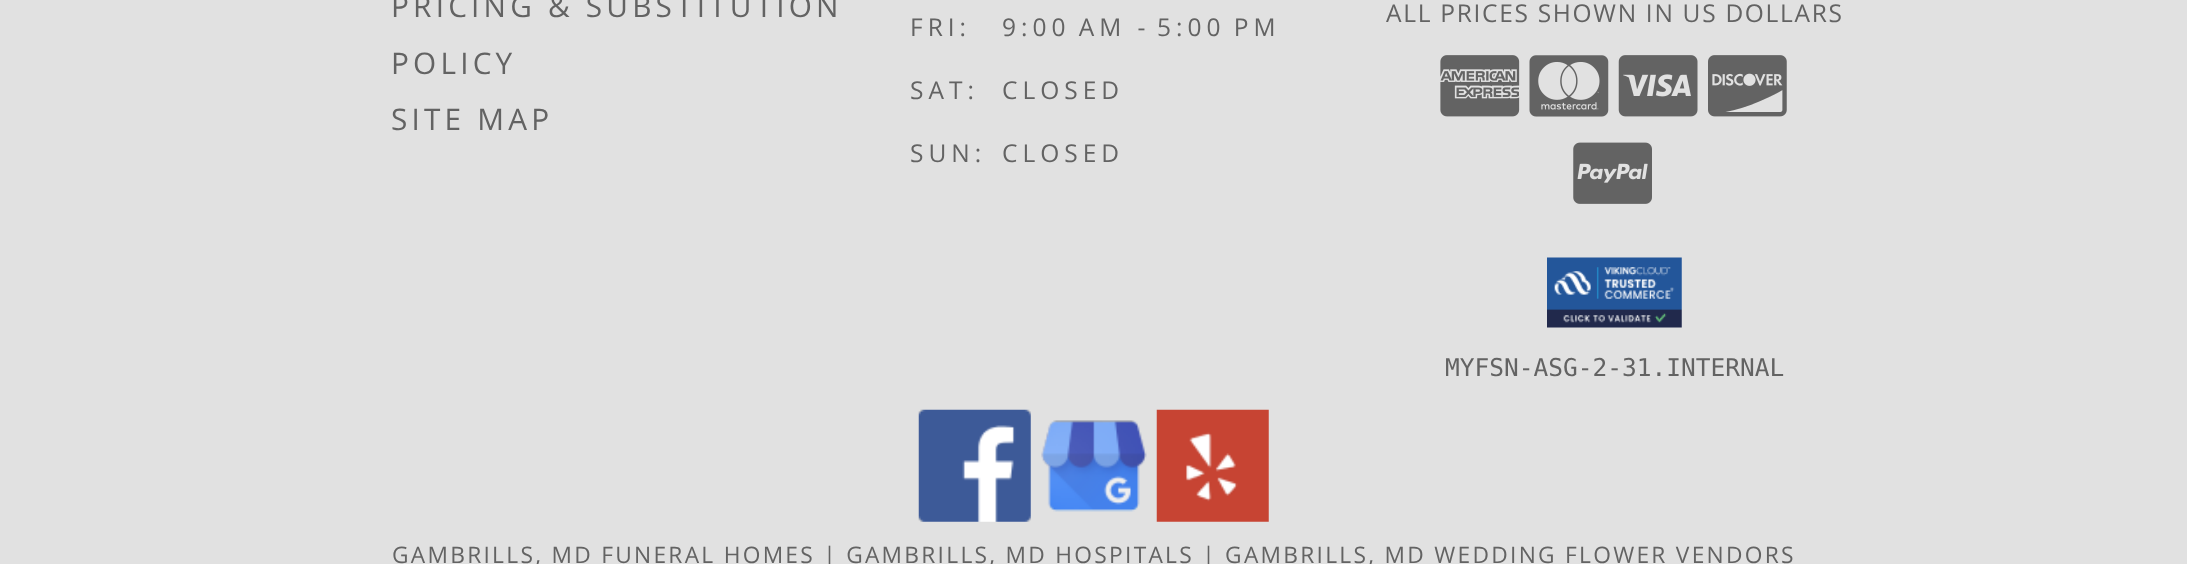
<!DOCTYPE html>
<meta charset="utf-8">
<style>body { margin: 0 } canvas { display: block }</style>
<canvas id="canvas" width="2187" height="564"></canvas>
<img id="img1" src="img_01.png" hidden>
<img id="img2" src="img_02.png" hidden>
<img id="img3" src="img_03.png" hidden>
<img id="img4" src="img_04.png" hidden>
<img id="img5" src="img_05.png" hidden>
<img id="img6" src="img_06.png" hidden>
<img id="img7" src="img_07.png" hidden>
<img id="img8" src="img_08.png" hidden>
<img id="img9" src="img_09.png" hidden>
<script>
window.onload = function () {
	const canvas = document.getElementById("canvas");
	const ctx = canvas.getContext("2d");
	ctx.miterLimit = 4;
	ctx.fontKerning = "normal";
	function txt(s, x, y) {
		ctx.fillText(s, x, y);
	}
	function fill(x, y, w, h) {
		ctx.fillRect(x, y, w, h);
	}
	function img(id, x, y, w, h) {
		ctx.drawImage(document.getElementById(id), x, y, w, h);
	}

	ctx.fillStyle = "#E1E1E1";
	fill(0, 0, 2187, 564);
	img("img1", 1440, 55, 80, 62);
	img("img2", 1529, 55, 80, 62);
	img("img3", 1618, 55, 80, 62);
	img("img4", 1708, 55, 79, 62);
	img("img5", 1573, 142, 79, 62);
	img("img6", 1547, 257, 135, 71);
	img("img7", 918, 409, 113, 113);
	img("img8", 1041, 420, 106, 92);
	img("img9", 1156, 409, 113, 113);
	ctx.letterSpacing = "4.2px";
	ctx.font = "29.75px Open Sans";
	ctx.fillStyle = "#636363";
	txt("PRICING & SUBSTITUTION", 391, 17);
	txt("POLICY", 391, 74);
	txt("SITE MAP", 391, 130);
	ctx.letterSpacing = "5px";
	ctx.font = "24.5px Open Sans";
	txt("FRI:", 910, 36);
	txt("9:00 AM -", 1002, 36);
	txt("5:00 PM", 1157, 36);
	txt("SAT:", 910, 99);
	txt("CLOSED", 1002, 99);
	txt("SUN:", 910, 162);
	txt("CLOSED", 1002, 162);
	ctx.letterSpacing = "1.7px";
	txt("ALL PRICES SHOWN IN US DOLLARS", 1386, 22);
	ctx.letterSpacing = "0px";
	ctx.font = "24.5px DejaVu Sans Mono";
	txt("MYFSN-ASG-2-31.INTERNAL", 1445, 376);
	ctx.letterSpacing = "2.27px";
	ctx.font = "22.75px Open Sans";
	txt("GAMBRILLS, MD FUNERAL HOMES | GAMBRILLS, MD HOSPITALS | GAMBRILLS, MD WEDDING FLOWER VENDORS", 392, 563);
};
</script>
